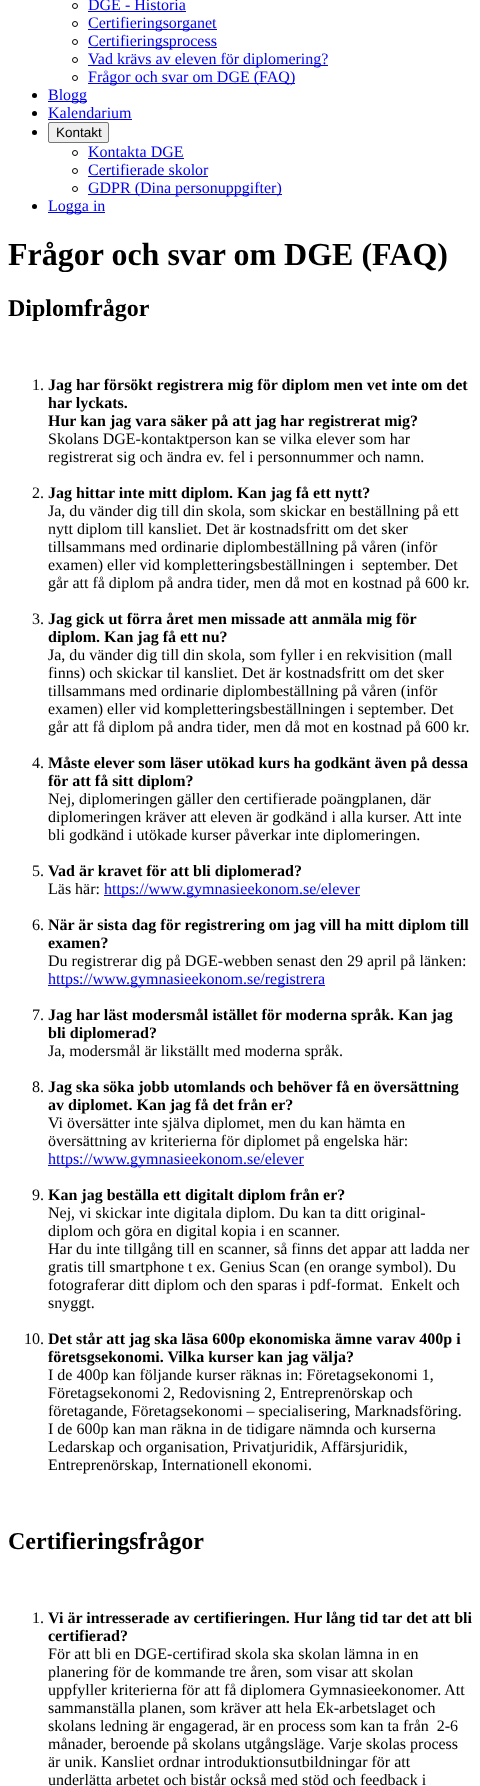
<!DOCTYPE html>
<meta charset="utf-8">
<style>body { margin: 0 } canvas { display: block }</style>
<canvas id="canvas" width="480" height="1786"></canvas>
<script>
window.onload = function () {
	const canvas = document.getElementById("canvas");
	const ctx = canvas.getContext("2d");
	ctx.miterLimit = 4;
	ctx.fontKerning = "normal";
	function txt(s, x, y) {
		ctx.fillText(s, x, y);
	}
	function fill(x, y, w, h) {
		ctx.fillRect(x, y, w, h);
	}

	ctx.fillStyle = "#FFFFFF";
	fill(0, 0, 480, 1786);
	ctx.beginPath();
	ctx.arc(75, 6, 2.5, 0, Math.PI * 2);
	ctx.strokeStyle = "#000000";
	ctx.stroke();
	ctx.fillStyle = "#0000EE";
	fill(88, 11, 98, 1);
	ctx.beginPath();
	ctx.arc(75, 24, 2.5, 0, Math.PI * 2);
	ctx.stroke();
	fill(88, 29, 129, 1);
	ctx.beginPath();
	ctx.arc(75, 42, 2.5, 0, Math.PI * 2);
	ctx.stroke();
	fill(88, 47, 129, 1);
	ctx.beginPath();
	ctx.arc(75, 60, 2.5, 0, Math.PI * 2);
	ctx.stroke();
	fill(88, 65, 240, 1);
	ctx.beginPath();
	ctx.arc(75, 78, 2.5, 0, Math.PI * 2);
	ctx.stroke();
	fill(88, 83, 207, 1);
	ctx.fillStyle = "#000000";
	ctx.beginPath();
	ctx.arc(34.5, 95.5, 2.5, 0, Math.PI * 2);
	ctx.fill();
	ctx.fillStyle = "#0000EE";
	fill(48, 101, 39, 1);
	ctx.fillStyle = "#000000";
	ctx.beginPath();
	ctx.arc(34.5, 113.5, 2.5, 0, Math.PI * 2);
	ctx.fill();
	ctx.fillStyle = "#0000EE";
	fill(48, 119, 84, 1);
	ctx.fillStyle = "#000000";
	ctx.beginPath();
	ctx.arc(34.5, 132.5, 2.5, 0, Math.PI * 2);
	ctx.fill();
	ctx.fillStyle = "#EFEFEF";
	ctx.beginPath();
	ctx.roundRect(48.5, 122.5, 60, 20, 1.5);
	ctx.fill();
	ctx.strokeStyle = "#767676";
	ctx.stroke();
	ctx.beginPath();
	ctx.arc(75, 153, 2.5, 0, Math.PI * 2);
	ctx.strokeStyle = "#000000";
	ctx.stroke();
	ctx.fillStyle = "#0000EE";
	fill(88, 158, 96, 1);
	ctx.beginPath();
	ctx.arc(75, 171, 2.5, 0, Math.PI * 2);
	ctx.stroke();
	fill(88, 176, 120, 1);
	ctx.beginPath();
	ctx.arc(75, 189, 2.5, 0, Math.PI * 2);
	ctx.stroke();
	fill(88, 194, 194, 1);
	ctx.fillStyle = "#000000";
	ctx.beginPath();
	ctx.arc(34.5, 206.5, 2.5, 0, Math.PI * 2);
	ctx.fill();
	ctx.fillStyle = "#0000EE";
	fill(48, 212, 57, 1);
	fill(104, 895, 256, 1);
	fill(48, 985, 277, 1);
	fill(48, 1165, 256, 1);
	ctx.font = "16px Liberation Serif";
	txt("DGE - Historia", 88, 10);
	txt("Certifieringsorganet", 88, 28);
	txt("Certifieringsprocess", 88, 46);
	txt("Vad krävs av eleven för diplomering?", 88, 64);
	txt("Frågor och svar om DGE (FAQ)", 88, 82);
	txt("Blogg", 48, 100);
	txt("Kalendarium", 48, 118);
	ctx.font = "13.5px Liberation Sans";
	ctx.fillStyle = "#000000";
	txt("Kontakt", 56, 137);
	ctx.font = "16px Liberation Serif";
	ctx.fillStyle = "#0000EE";
	txt("Kontakta DGE", 88, 157);
	txt("Certifierade skolor", 88, 175);
	txt("GDPR (Dina personuppgifter)", 88, 193);
	txt("Logga in", 48, 211);
	ctx.font = "bold 32px Liberation Serif";
	ctx.fillStyle = "#000000";
	txt("Frågor och svar om DGE (FAQ)", 8, 265);
	ctx.font = "bold 24px Liberation Serif";
	txt("Diplomfrågor", 8, 316);
	ctx.font = "16px Liberation Serif";
	txt("1.", 32, 390);
	ctx.font = "bold 16px Liberation Serif";
	txt("Jag har försökt registrera mig för diplom men vet inte om det", 48, 390);
	txt("har lyckats.", 48, 408);
	txt("Hur kan jag vara säker på att jag har registrerat mig?", 48, 426);
	ctx.font = "16px Liberation Serif";
	txt("Skolans DGE-kontaktperson kan se vilka elever som har", 48, 444);
	txt("registrerat sig och ändra ev. fel i personnummer och namn.", 48, 462);
	txt("2.", 32, 498);
	ctx.font = "bold 16px Liberation Serif";
	txt("Jag hittar inte mitt diplom. Kan jag få ett nytt?", 48, 498);
	ctx.font = "16px Liberation Serif";
	txt("Ja, du vänder dig till din skola, som skickar en beställning på ett", 48, 516);
	txt("nytt diplom till kansliet. Det är kostnadsfritt om det sker", 48, 534);
	txt("tillsammans med ordinarie diplombeställning på våren (inför", 48, 552);
	txt("examen) eller vid kompletteringsbeställningen i  september. Det", 48, 570);
	txt("går att få diplom på andra tider, men då mot en kostnad på 600 kr.", 48, 588);
	txt("3.", 32, 624);
	ctx.font = "bold 16px Liberation Serif";
	txt("Jag gick ut förra året men missade att anmäla mig för", 48, 624);
	txt("diplom. Kan jag få ett nu?", 48, 642);
	ctx.font = "16px Liberation Serif";
	txt("Ja, du vänder dig till din skola, som fyller i en rekvisition (mall", 48, 660);
	txt("finns) och skickar til kansliet. Det är kostnadsfritt om det sker", 48, 678);
	txt("tillsammans med ordinarie diplombeställning på våren (inför", 48, 696);
	txt("examen) eller vid kompletteringsbeställningen i september. Det", 48, 714);
	txt("går att få diplom på andra tider, men då mot en kostnad på 600 kr.", 48, 732);
	txt("4.", 32, 768);
	ctx.font = "bold 16px Liberation Serif";
	txt("Måste elever som läser utökad kurs ha godkänt även på dessa", 48, 768);
	txt("för att få sitt diplom?", 48, 786);
	ctx.font = "16px Liberation Serif";
	txt("Nej, diplomeringen gäller den certifierade poängplanen, där", 48, 804);
	txt("diplomeringen kräver att eleven är godkänd i alla kurser. Att inte", 48, 822);
	txt("bli godkänd i utökade kurser påverkar inte diplomeringen.", 48, 840);
	txt("5.", 32, 876);
	ctx.font = "bold 16px Liberation Serif";
	txt("Vad är kravet för att bli diplomerad?", 48, 876);
	ctx.font = "16px Liberation Serif";
	txt("Läs här:", 48, 894);
	ctx.fillStyle = "#0000EE";
	txt("https://www.gymnasieekonom.se/elever", 104, 894);
	ctx.fillStyle = "#000000";
	txt("6.", 32, 930);
	ctx.font = "bold 16px Liberation Serif";
	txt("När är sista dag för registrering om jag vill ha mitt diplom till", 48, 930);
	txt("examen?", 48, 948);
	ctx.font = "16px Liberation Serif";
	txt("Du registrerar dig på DGE-webben senast den 29 april på länken:", 48, 966);
	ctx.fillStyle = "#0000EE";
	txt("https://www.gymnasieekonom.se/registrera", 48, 984);
	ctx.fillStyle = "#000000";
	txt("7.", 32, 1020);
	ctx.font = "bold 16px Liberation Serif";
	txt("Jag har läst modersmål istället för moderna språk. Kan jag", 48, 1020);
	txt("bli diplomerad?", 48, 1038);
	ctx.font = "16px Liberation Serif";
	txt("Ja, modersmål är likställt med moderna språk.", 48, 1056);
	txt("8.", 32, 1092);
	ctx.font = "bold 16px Liberation Serif";
	txt("Jag ska söka jobb utomlands och behöver få en översättning", 48, 1092);
	txt("av diplomet. Kan jag få det från er?", 48, 1110);
	ctx.font = "16px Liberation Serif";
	txt("Vi översätter inte själva diplomet, men du kan hämta en", 48, 1128);
	txt("översättning av kriterierna för diplomet på engelska här:", 48, 1146);
	ctx.fillStyle = "#0000EE";
	txt("https://www.gymnasieekonom.se/elever", 48, 1164);
	ctx.fillStyle = "#000000";
	txt("9.", 32, 1200);
	ctx.font = "bold 16px Liberation Serif";
	txt("Kan jag beställa ett digitalt diplom från er?", 48, 1200);
	ctx.font = "16px Liberation Serif";
	txt("Nej, vi skickar inte digitala diplom. Du kan ta ditt original-", 48, 1218);
	txt("diplom och göra en digital kopia i en scanner.", 48, 1236);
	txt("Har du inte tillgång till en scanner, så finns det appar att ladda ner", 48, 1254);
	txt("gratis till smartphone t ex. Genius Scan (en orange symbol). Du", 48, 1272);
	txt("fotograferar ditt diplom och den sparas i pdf-format.  Enkelt och", 48, 1290);
	txt("snyggt.", 48, 1308);
	txt("10.", 24, 1344);
	ctx.font = "bold 16px Liberation Serif";
	txt("Det står att jag ska läsa 600p ekonomiska ämne varav 400p i", 48, 1344);
	txt("företsgsekonomi. Vilka kurser kan jag välja?", 48, 1362);
	ctx.font = "16px Liberation Serif";
	txt("I de 400p kan följande kurser räknas in: Företagsekonomi 1,", 48, 1380);
	txt("Företagsekonomi 2, Redovisning 2, Entreprenörskap och", 48, 1398);
	txt("företagande, Företagsekonomi – specialisering, Marknadsföring.", 48, 1416);
	txt("I de 600p kan man räkna in de tidigare nämnda och kurserna", 48, 1434);
	txt("Ledarskap och organisation, Privatjuridik, Affärsjuridik,", 48, 1452);
	txt("Entreprenörskap, Internationell ekonomi.", 48, 1470);
	ctx.font = "bold 24px Liberation Serif";
	txt("Certifieringsfrågor", 8, 1549);
	ctx.font = "16px Liberation Serif";
	txt("1.", 32, 1623);
	ctx.font = "bold 16px Liberation Serif";
	txt("Vi är intresserade av certifieringen. Hur lång tid tar det att bli", 48, 1623);
	txt("certifierad?", 48, 1641);
	ctx.font = "16px Liberation Serif";
	txt("För att bli en DGE-certifirad skola ska skolan lämna in en", 48, 1659);
	txt("planering för de kommande tre åren, som visar att skolan", 48, 1677);
	txt("uppfyller kriterierna för att få diplomera Gymnasieekonomer. Att", 48, 1695);
	txt("sammanställa planen, som kräver att hela Ek-arbetslaget och", 48, 1713);
	txt("skolans ledning är engagerad, är en process som kan ta från  2-6", 48, 1731);
	txt("månader, beroende på skolans utgångsläge. Varje skolas process", 48, 1749);
	txt("är unik. Kansliet ordnar introduktionsutbildningar för att", 48, 1767);
	txt("underlätta arbetet och bistår också med stöd och feedback i", 48, 1785);
};
</script>
